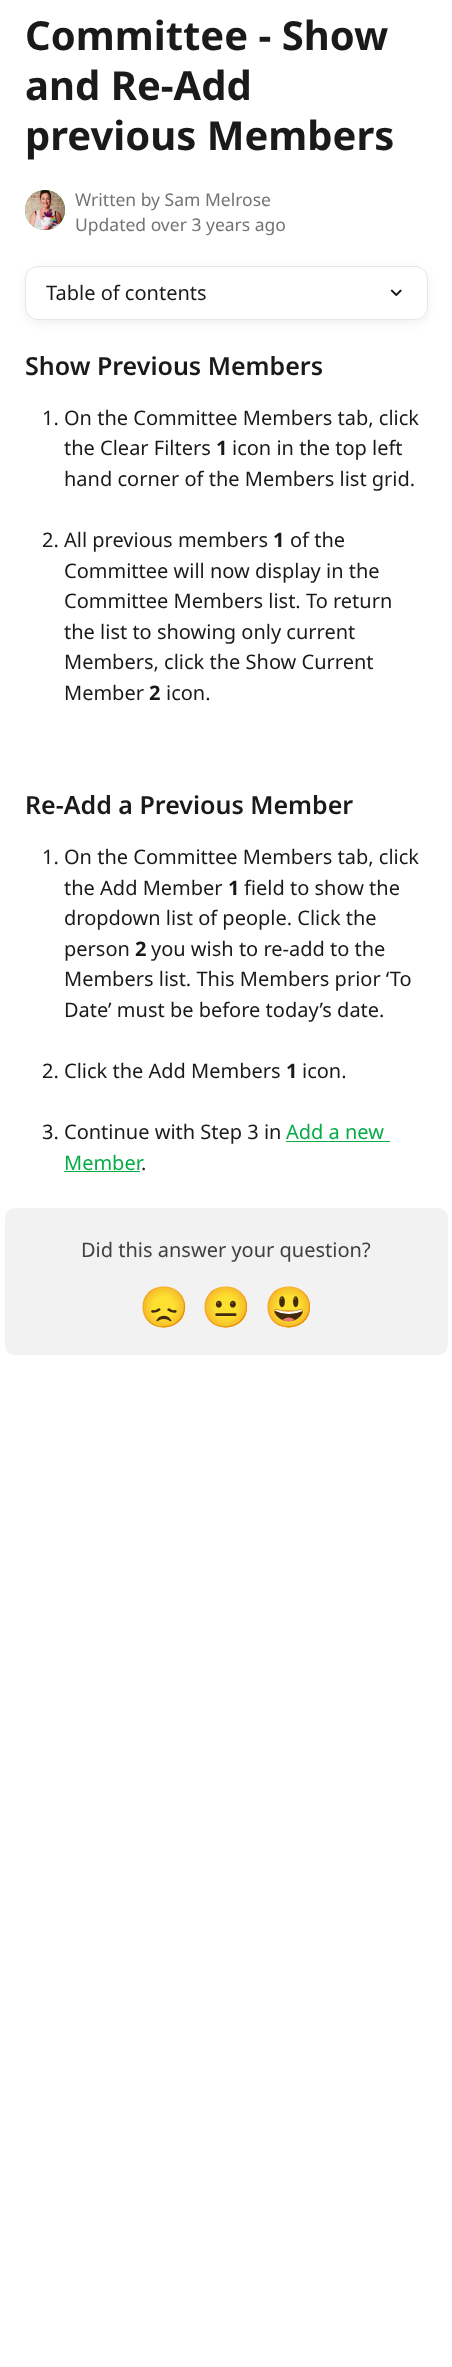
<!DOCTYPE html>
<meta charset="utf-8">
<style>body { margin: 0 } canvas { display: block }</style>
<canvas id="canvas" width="452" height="2367"></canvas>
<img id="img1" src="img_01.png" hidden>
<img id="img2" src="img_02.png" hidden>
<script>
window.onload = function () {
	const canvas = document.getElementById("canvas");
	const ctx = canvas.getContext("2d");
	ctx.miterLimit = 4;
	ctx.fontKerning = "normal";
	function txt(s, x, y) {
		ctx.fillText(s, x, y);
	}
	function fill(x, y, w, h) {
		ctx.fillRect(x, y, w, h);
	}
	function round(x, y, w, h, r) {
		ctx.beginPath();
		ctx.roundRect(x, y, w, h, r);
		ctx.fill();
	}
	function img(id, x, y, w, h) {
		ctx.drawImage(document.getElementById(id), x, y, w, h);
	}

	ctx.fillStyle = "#FFFFFF";
	fill(0, 0, 452, 2367);
	ctx.fillStyle = "#06AC46";
	ctx.beginPath();
	ctx.arc(45, 210, 20, 0, Math.PI * 2);
	ctx.fill();
	img("img1", 25, 190, 40, 40);
	ctx.save();
	ctx.beginPath();
	ctx.moveTo(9, 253);
	ctx.lineTo(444, 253);
	ctx.lineTo(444, 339);
	ctx.lineTo(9, 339);
	ctx.closePath();
	ctx.moveTo(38, 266);
	ctx.lineTo(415, 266);
	ctx.bezierCurveTo(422, 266, 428, 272, 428, 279);
	ctx.lineTo(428, 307);
	ctx.bezierCurveTo(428, 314, 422, 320, 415, 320);
	ctx.lineTo(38, 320);
	ctx.bezierCurveTo(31, 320, 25, 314, 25, 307);
	ctx.lineTo(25, 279);
	ctx.bezierCurveTo(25, 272, 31, 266, 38, 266);
	ctx.closePath();
	ctx.clip("evenodd");
	ctx.fillStyle = "rgba(0, 0, 0, 0.06)";
	ctx.filter = "blur(5px)";
	ctx.beginPath();
	ctx.roundRect(25, 269, 403, 54, 13);
	ctx.fill();
	ctx.filter = "none";
	ctx.restore();
	ctx.beginPath();
	ctx.roundRect(25.5, 266.5, 402, 53, 12.5);
	ctx.strokeStyle = "#E6E6E6";
	ctx.stroke();
	img("img2", 390, 289, 12, 7);
	fill(286, 1141, 104, 1);
	fill(64, 1171, 76, 1);
	ctx.fillStyle = "#F2F2F2";
	round(5, 1208, 443, 147, 10);
	ctx.font = "bold 40px Noto Sans";
	ctx.fillStyle = "#1A1A1A";
	txt("Committee - Show", 25, 50);
	txt("and Re-Add", 25, 100);
	txt("previous Members", 25, 150);
	ctx.font = "17.5px Noto Sans";
	ctx.fillStyle = "#737373";
	txt("Written by Sam Melrose", 75, 206);
	txt("Updated over 3 years ago", 75, 231);
	ctx.font = "20px Noto Sans";
	ctx.fillStyle = "#1A1A1A";
	txt("Table of contents", 46, 300);
	ctx.font = "600 25px Noto Sans";
	txt("Show Previous Members", 25, 375);
	ctx.font = "20px Noto Sans";
	txt("1. On the Committee Members tab, click", 42, 425);
	txt("the Clear Filters", 64, 455);
	ctx.font = "bold 20px Noto Sans";
	txt("1", 216, 455);
	ctx.font = "20px Noto Sans";
	txt("icon in the top left", 232, 455);
	txt("hand corner of the Members list grid.", 64, 486);
	txt("2. All previous members", 42, 547);
	ctx.font = "bold 20px Noto Sans";
	txt("1", 273, 547);
	ctx.font = "20px Noto Sans";
	txt("of the", 290, 547);
	txt("Committee will now display in the", 64, 578);
	txt("Committee Members list. To return", 64, 608);
	txt("the list to showing only current", 64, 639);
	txt("Members, click the Show Current", 64, 669);
	txt("Member", 64, 700);
	ctx.font = "bold 20px Noto Sans";
	txt("2", 149, 700);
	ctx.font = "20px Noto Sans";
	txt("icon.", 166, 700);
	ctx.font = "600 25px Noto Sans";
	txt("Re-Add a Previous Member", 25, 814);
	ctx.font = "20px Noto Sans";
	txt("1. On the Committee Members tab, click", 42, 864);
	txt("the Add Member", 64, 895);
	ctx.font = "bold 20px Noto Sans";
	txt("1", 228, 895);
	ctx.font = "20px Noto Sans";
	txt("field to show the", 244, 895);
	txt("dropdown list of people. Click the", 64, 925);
	txt("person", 64, 956);
	ctx.font = "bold 20px Noto Sans";
	txt("2", 135, 956);
	ctx.font = "20px Noto Sans";
	txt("you wish to re-add to the", 151, 956);
	txt("Members list. This Members prior ‘To", 64, 986);
	txt("Date’ must be before today’s date.", 64, 1017);
	txt("2. Click the Add Members", 42, 1078);
	ctx.font = "bold 20px Noto Sans";
	txt("1", 286, 1078);
	ctx.font = "20px Noto Sans";
	txt("icon.", 302, 1078);
	txt("3. Continue with Step 3 in", 42, 1139);
	ctx.fillStyle = "#06AC46";
	txt("Add a new", 286, 1139);
	txt("Member", 64, 1170);
	ctx.fillStyle = "#1A1A1A";
	txt(".", 141, 1170);
	ctx.fillStyle = "#404040";
	txt("Did this answer your question?", 81, 1257);
	ctx.font = "40px Noto Color Emoji";
	txt("😞", 139, 1321);
	txt("😐", 201, 1321);
	txt("😃", 264, 1321);
};
</script>
